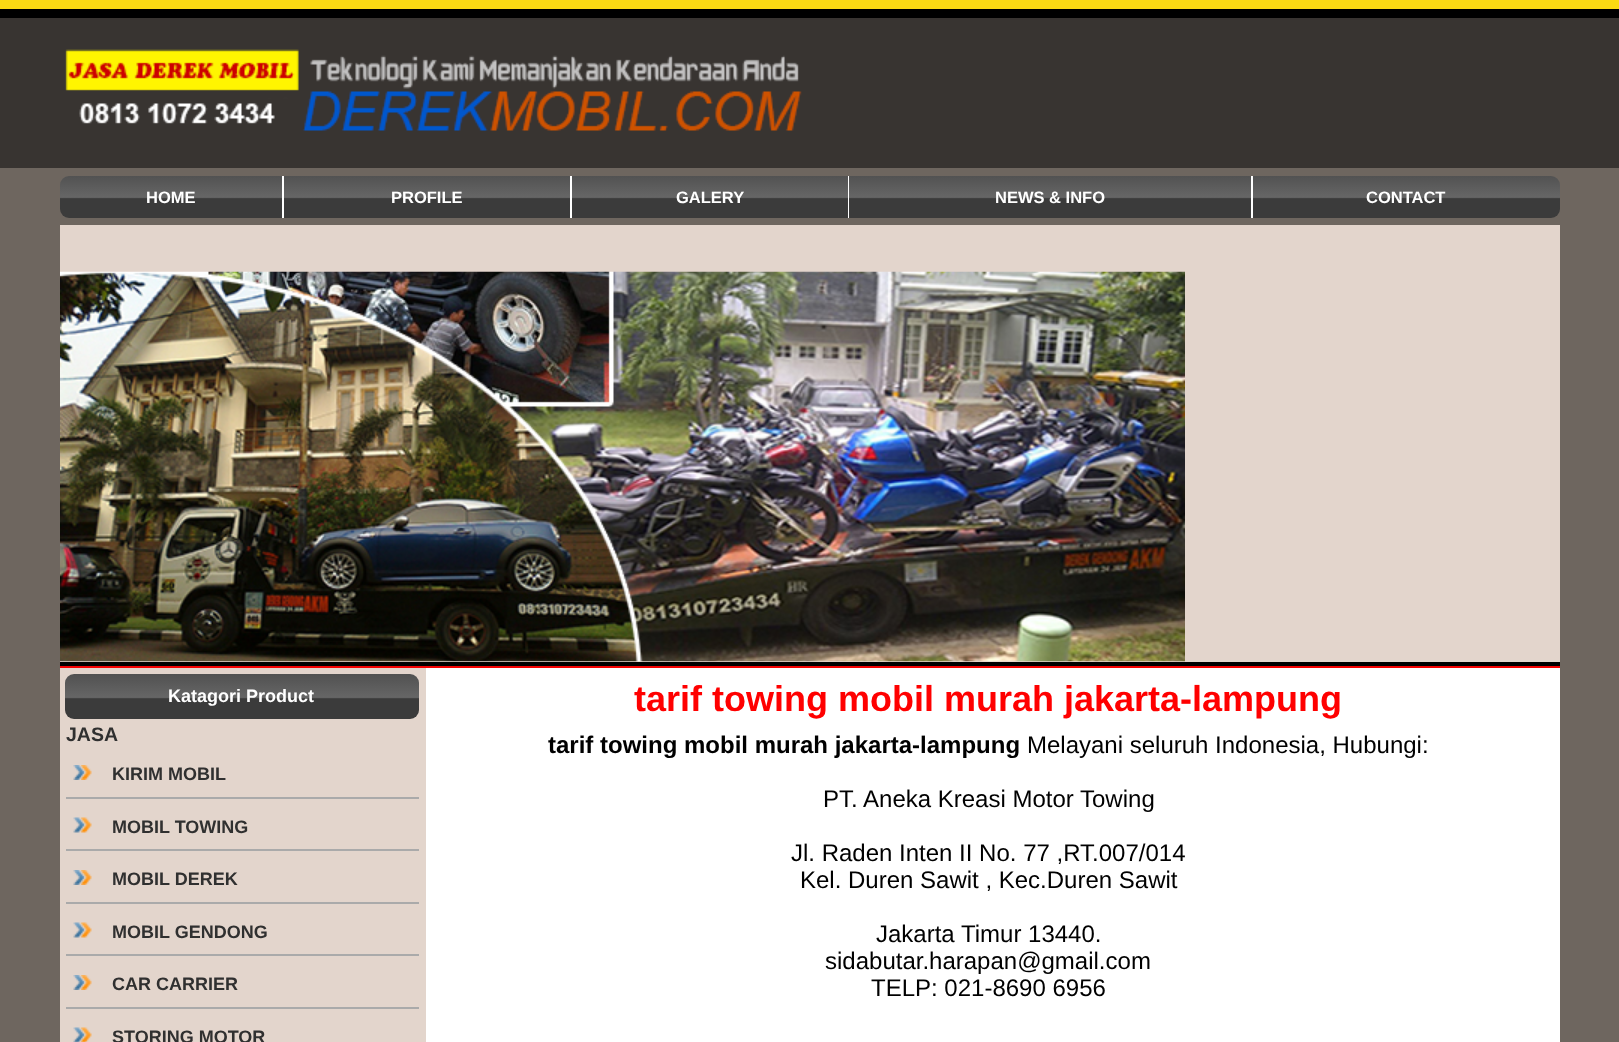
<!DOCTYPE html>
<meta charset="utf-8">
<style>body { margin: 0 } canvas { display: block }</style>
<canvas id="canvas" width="1619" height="1042"></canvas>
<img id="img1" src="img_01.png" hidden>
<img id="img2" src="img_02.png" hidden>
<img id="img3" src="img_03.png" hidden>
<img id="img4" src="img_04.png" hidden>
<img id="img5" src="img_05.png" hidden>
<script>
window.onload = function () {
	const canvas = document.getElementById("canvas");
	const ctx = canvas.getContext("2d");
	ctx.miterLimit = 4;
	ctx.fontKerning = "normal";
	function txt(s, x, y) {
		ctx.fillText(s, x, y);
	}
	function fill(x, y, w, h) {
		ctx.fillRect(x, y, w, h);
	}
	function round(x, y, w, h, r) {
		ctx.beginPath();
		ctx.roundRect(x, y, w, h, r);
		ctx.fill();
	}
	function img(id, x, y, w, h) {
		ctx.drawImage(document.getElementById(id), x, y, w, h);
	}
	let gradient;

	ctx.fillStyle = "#6E665F";
	fill(0, 0, 1619, 1042);
	ctx.fillStyle = "#FBDA13";
	fill(0, 0, 1619, 9);
	ctx.fillStyle = "#000000";
	fill(0, 9, 1619, 9);
	ctx.fillStyle = "#383431";
	fill(0, 18, 1619, 150);
	img("img1", 65, 49, 737, 82);
	gradient = ctx.createLinearGradient(171, 175, 171, 218);
	gradient.addColorStop(0, "#515151");
	gradient.addColorStop(0.52, "#666666");
	gradient.addColorStop(0.55, "#3B3B3B");
	ctx.fillStyle = gradient;
	ctx.beginPath();
	ctx.roundRect(60, 176, 222, 42, [9, 0, 0, 9]);
	ctx.fill();
	ctx.fillStyle = "#FFFFFF";
	fill(282, 176, 2, 42);
	gradient = ctx.createLinearGradient(427, 175, 427, 218);
	gradient.addColorStop(0, "#515151");
	gradient.addColorStop(0.52, "#666666");
	gradient.addColorStop(0.55, "#3B3B3B");
	ctx.fillStyle = gradient;
	fill(284, 176, 286, 42);
	ctx.fillStyle = "#FFFFFF";
	fill(570, 176, 2, 42);
	gradient = ctx.createLinearGradient(710, 175, 710, 218);
	gradient.addColorStop(0, "#515151");
	gradient.addColorStop(0.52, "#666666");
	gradient.addColorStop(0.55, "#3B3B3B");
	ctx.fillStyle = gradient;
	fill(572, 176, 276, 42);
	ctx.fillStyle = "#FFFFFF";
	fill(848, 176, 1, 42);
	gradient = ctx.createLinearGradient(1050, 175, 1050, 218);
	gradient.addColorStop(0, "#515151");
	gradient.addColorStop(0.52, "#666666");
	gradient.addColorStop(0.55, "#3B3B3B");
	ctx.fillStyle = gradient;
	fill(849, 176, 402, 42);
	ctx.fillStyle = "#FFFFFF";
	fill(1251, 176, 2, 42);
	gradient = ctx.createLinearGradient(1406, 175, 1406, 218);
	gradient.addColorStop(0, "#515151");
	gradient.addColorStop(0.52, "#666666");
	gradient.addColorStop(0.55, "#3B3B3B");
	ctx.fillStyle = gradient;
	ctx.beginPath();
	ctx.roundRect(1253, 176, 307, 42, [0, 9, 9, 0]);
	ctx.fill();
	ctx.fillStyle = "#E3D5CC";
	fill(60, 225, 1500, 437);
	img("img2", 60, 271, 1125, 391);
	ctx.fillStyle = "#000000";
	fill(60, 662, 1500, 4);
	ctx.fillStyle = "#F40101";
	fill(60, 666, 1500, 2);
	ctx.fillStyle = "#E3D5CC";
	fill(60, 668, 366, 374);
	gradient = ctx.createLinearGradient(242, 674, 242, 719);
	gradient.addColorStop(0, "#515151");
	gradient.addColorStop(0.52, "#666666");
	gradient.addColorStop(0.55, "#3B3B3B");
	ctx.fillStyle = gradient;
	round(65, 674, 354, 45, 9);
	ctx.fillStyle = "#AAAAAA";
	fill(66, 797, 353, 2);
	img("img3", 73, 765, 19, 15);
	fill(66, 849, 353, 2);
	img("img4", 73, 817, 19, 16);
	fill(66, 902, 353, 2);
	img("img3", 73, 870, 19, 15);
	fill(66, 954, 353, 2);
	img("img4", 73, 922, 19, 16);
	fill(66, 1007, 353, 2);
	img("img3", 73, 975, 19, 15);
	img("img5", 73, 1027, 19, 15);
	ctx.fillStyle = "#FFFFFF";
	fill(426, 668, 1134, 374);
	ctx.font = "bold 16.5px Liberation Sans";
	txt("HOME", 146, 203);
	txt("PROFILE", 391, 203);
	txt("GALERY", 676, 203);
	txt("NEWS & INFO", 995, 203);
	txt("CONTACT", 1366, 203);
	ctx.font = "bold 18px Liberation Sans";
	txt("Katagori Product", 168, 702);
	ctx.font = "bold 19.5px Liberation Sans";
	ctx.fillStyle = "#303030";
	txt("JASA", 66, 741);
	ctx.font = "bold 18px Liberation Sans";
	txt("KIRIM MOBIL", 112, 780);
	txt("MOBIL TOWING", 112, 833);
	txt("MOBIL DEREK", 112, 885);
	txt("MOBIL GENDONG", 112, 938);
	txt("CAR CARRIER", 112, 990);
	txt("STORING MOTOR", 112, 1043);
	ctx.font = "bold 36px Liberation Sans";
	ctx.fillStyle = "#FF0000";
	txt("tarif towing mobil murah jakarta-lampung", 634, 711);
	ctx.font = "bold 24px Liberation Sans";
	ctx.fillStyle = "#000000";
	txt("tarif towing mobil murah jakarta-lampung", 548, 753);
	ctx.font = "24px Liberation Sans";
	txt("Melayani seluruh Indonesia, Hubungi:", 1027, 753);
	txt("PT. Aneka Kreasi Motor Towing", 823, 807);
	txt("Jl. Raden Inten II No. 77 ,RT.007/014", 791, 861);
	txt("Kel. Duren Sawit , Kec.Duren Sawit", 800, 888);
	txt("Jakarta Timur 13440.", 876, 942);
	txt("sidabutar.harapan@gmail.com", 825, 969);
	txt("TELP: 021-8690 6956", 871, 996);
};
</script>
